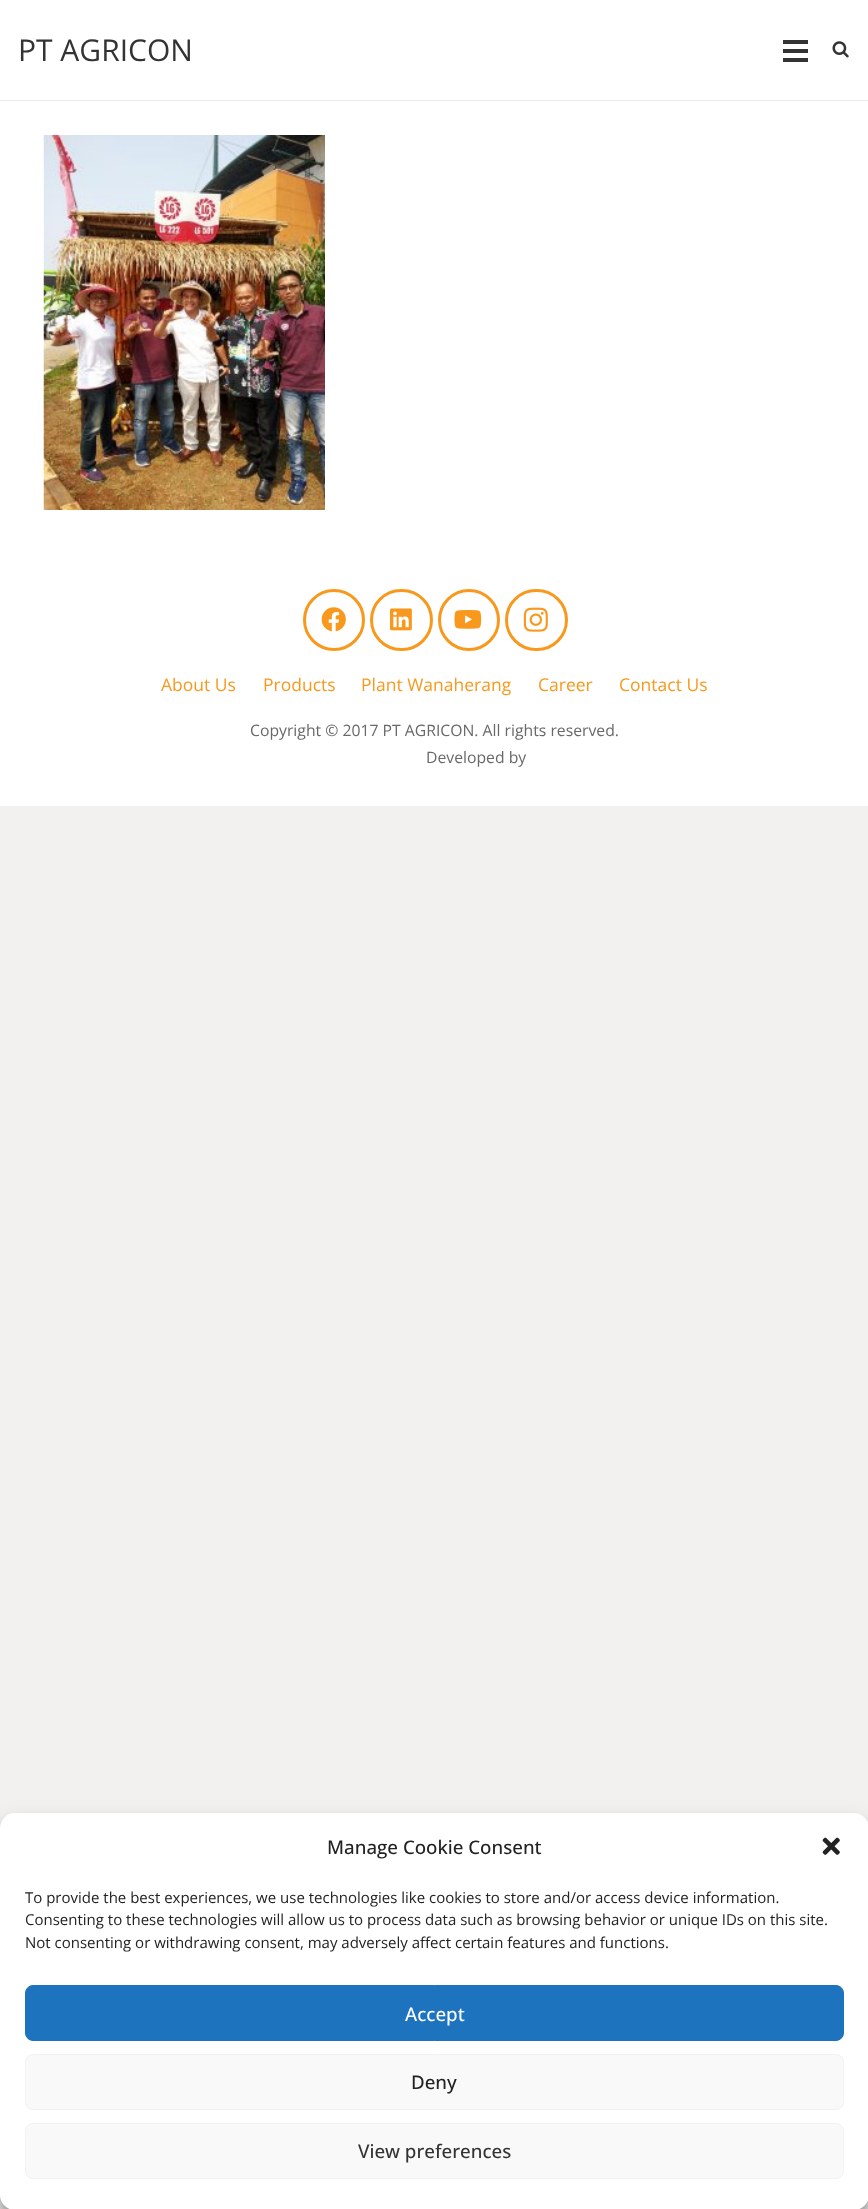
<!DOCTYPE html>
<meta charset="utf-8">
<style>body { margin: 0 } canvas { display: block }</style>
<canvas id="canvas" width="868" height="2209"></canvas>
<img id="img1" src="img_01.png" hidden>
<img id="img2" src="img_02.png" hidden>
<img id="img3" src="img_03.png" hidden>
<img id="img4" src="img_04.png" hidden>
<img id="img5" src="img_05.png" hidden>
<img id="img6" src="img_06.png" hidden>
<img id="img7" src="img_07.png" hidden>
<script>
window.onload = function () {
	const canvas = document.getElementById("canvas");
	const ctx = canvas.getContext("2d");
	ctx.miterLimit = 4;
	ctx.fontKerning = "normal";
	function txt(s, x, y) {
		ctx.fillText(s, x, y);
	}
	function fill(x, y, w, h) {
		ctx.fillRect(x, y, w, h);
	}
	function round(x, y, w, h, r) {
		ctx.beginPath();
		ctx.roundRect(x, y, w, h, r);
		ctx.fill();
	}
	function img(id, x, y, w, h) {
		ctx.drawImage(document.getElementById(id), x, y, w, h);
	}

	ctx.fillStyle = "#F2F1F0";
	fill(0, 0, 868, 2209);
	ctx.fillStyle = "#FFFFFF";
	fill(0, 0, 868, 806);
	ctx.fillStyle = "#EBEBEB";
	ctx.beginPath();
	ctx.moveTo(0, 100);
	ctx.lineTo(0, 101);
	ctx.lineTo(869, 101);
	ctx.lineTo(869, 1);
	ctx.lineTo(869, 100);
	ctx.closePath();
	ctx.fill();
	ctx.fillStyle = "#333333";
	fill(783, 49, 25, 4);
	fill(783, 40, 25, 4);
	fill(783, 58, 25, 4);
	img("img1", 832, 41, 17, 17);
	img("img2", 43, 135, 282, 375);
	ctx.beginPath();
	ctx.arc(334, 620, 29.5, 0, Math.PI * 2);
	ctx.strokeStyle = "#F8991D";
	ctx.lineWidth = 3;
	ctx.stroke();
	img("img3", 321, 607, 25, 25);
	ctx.beginPath();
	ctx.roundRect(371.5, 590.5, 60, 59, 29.5);
	ctx.stroke();
	img("img4", 390, 608, 22, 23);
	ctx.beginPath();
	ctx.arc(469, 620, 29.5, 0, Math.PI * 2);
	ctx.stroke();
	img("img5", 454, 610, 28, 19);
	ctx.beginPath();
	ctx.roundRect(506.5, 590.5, 60, 59, 29.5);
	ctx.stroke();
	img("img6", 523, 607, 25, 25);
	ctx.fillStyle = "rgba(0, 0, 0, 0.23)";
	ctx.filter = "blur(4px)";
	ctx.beginPath();
	ctx.roundRect(0, 1820, 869, 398, 15);
	ctx.fill();
	ctx.filter = "none";
	ctx.fillStyle = "rgba(0, 0, 0, 0.19)";
	ctx.filter = "blur(12.5px)";
	ctx.beginPath();
	ctx.roundRect(0, 1825, 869, 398, 15);
	ctx.fill();
	ctx.filter = "none";
	ctx.fillStyle = "#FFFFFF";
	round(0, 1813, 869, 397, 15);
	img("img7", 822, 1837, 18, 18);
	ctx.fillStyle = "#1E73BE";
	ctx.beginPath();
	ctx.roundRect(25.5, 1985.5, 818, 55, 7.5);
	ctx.fill();
	ctx.strokeStyle = "#1E73BE";
	ctx.lineWidth = 1;
	ctx.stroke();
	ctx.fillStyle = "#F9F9F9";
	ctx.beginPath();
	ctx.roundRect(25.5, 2054.5, 818, 55, 7.5);
	ctx.fill();
	ctx.strokeStyle = "#F2F2F2";
	ctx.stroke();
	ctx.beginPath();
	ctx.roundRect(25.5, 2123.5, 818, 55, 7.5);
	ctx.fill();
	ctx.stroke();
	ctx.font = "30px Open Sans";
	ctx.fillStyle = "#333333";
	txt("PT AGRICON", 18, 61);
	ctx.font = "17.5px Open Sans";
	ctx.fillStyle = "#F8991D";
	txt("About Us", 161, 691);
	txt("Products", 263, 691);
	txt("Plant Wanaherang", 361, 691);
	txt("Career", 538, 691);
	txt("Contact Us", 619, 691);
	ctx.font = "15.75px Open Sans";
	ctx.fillStyle = "#696969";
	txt("Copyright © 2017 PT AGRICON. All rights reserved.", 250, 736);
	txt("Developed by", 426, 763);
	ctx.font = "500 18.75px Open Sans";
	ctx.fillStyle = "#222222";
	txt("Manage Cookie Consent", 327, 1854);
	ctx.font = "15px Open Sans";
	txt("To provide the best experiences, we use technologies like cookies to store and/or access device information.", 25, 1903);
	txt("Consenting to these technologies will allow us to process data such as browsing behavior or unique IDs on this site.", 25, 1925);
	txt("Not consenting or withdrawing consent, may adversely affect certain features and functions.", 25, 1948);
	ctx.font = "500 18.75px Open Sans";
	ctx.fillStyle = "#FFFFFF";
	txt("Accept", 405, 2021);
	ctx.fillStyle = "#222222";
	txt("Deny", 411, 2089);
	ctx.fillStyle = "#333333";
	txt("View preferences", 358, 2158);
};
</script>
